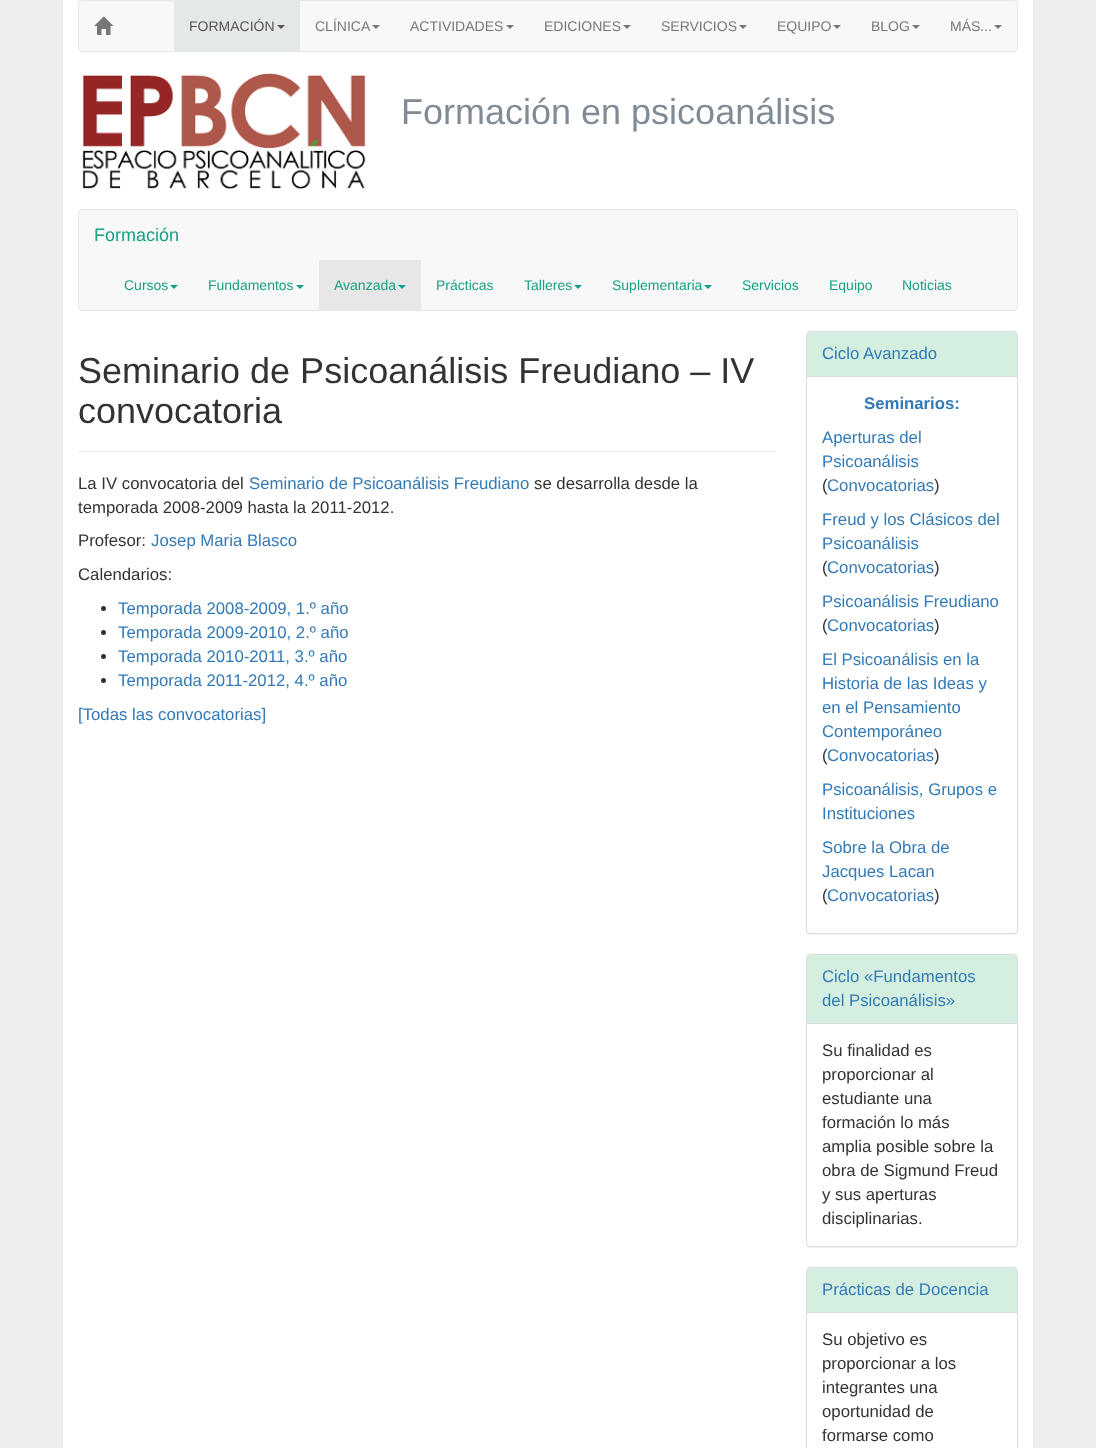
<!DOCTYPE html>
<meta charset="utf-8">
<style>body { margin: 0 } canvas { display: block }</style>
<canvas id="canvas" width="1096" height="1448"></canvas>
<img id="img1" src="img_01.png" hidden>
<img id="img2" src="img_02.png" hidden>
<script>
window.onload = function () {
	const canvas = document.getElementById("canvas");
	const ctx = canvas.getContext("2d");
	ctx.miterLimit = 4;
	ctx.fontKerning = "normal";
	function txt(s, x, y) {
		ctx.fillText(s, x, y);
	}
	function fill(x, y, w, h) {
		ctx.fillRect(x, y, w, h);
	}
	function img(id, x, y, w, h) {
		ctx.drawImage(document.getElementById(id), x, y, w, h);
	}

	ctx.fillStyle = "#EEEEEE";
	fill(0, 0, 1096, 1448);
	ctx.fillStyle = "#FFFFFF";
	fill(63, 0, 970, 1448);
	ctx.fillStyle = "#F8F8F8";
	ctx.beginPath();
	ctx.roundRect(78.5, 0.5, 939, 51, 3.5);
	ctx.fill();
	ctx.strokeStyle = "#E7E7E7";
	ctx.stroke();
	img("img1", 94, 16, 20, 19);
	ctx.fillStyle = "#E5E8E8";
	fill(174, 1, 126, 50);
	ctx.fillStyle = "#555555";
	ctx.beginPath();
	ctx.moveTo(277, 25);
	ctx.lineTo(285, 25);
	ctx.lineTo(281, 29);
	ctx.closePath();
	ctx.fill();
	ctx.fillStyle = "#777777";
	ctx.beginPath();
	ctx.moveTo(372, 25);
	ctx.lineTo(380, 25);
	ctx.lineTo(376, 29);
	ctx.closePath();
	ctx.fill();
	ctx.beginPath();
	ctx.moveTo(506, 25);
	ctx.lineTo(514, 25);
	ctx.lineTo(510, 29);
	ctx.closePath();
	ctx.fill();
	ctx.beginPath();
	ctx.moveTo(623, 25);
	ctx.lineTo(631, 25);
	ctx.lineTo(627, 29);
	ctx.closePath();
	ctx.fill();
	ctx.beginPath();
	ctx.moveTo(739, 25);
	ctx.lineTo(747, 25);
	ctx.lineTo(743, 29);
	ctx.closePath();
	ctx.fill();
	ctx.beginPath();
	ctx.moveTo(833, 25);
	ctx.lineTo(841, 25);
	ctx.lineTo(837, 29);
	ctx.closePath();
	ctx.fill();
	ctx.beginPath();
	ctx.moveTo(912, 25);
	ctx.lineTo(920, 25);
	ctx.lineTo(916, 29);
	ctx.closePath();
	ctx.fill();
	ctx.beginPath();
	ctx.moveTo(994, 25);
	ctx.lineTo(1002, 25);
	ctx.lineTo(998, 29);
	ctx.closePath();
	ctx.fill();
	img("img2", 82, 73, 284, 116);
	ctx.fillStyle = "#F8F8F8";
	ctx.beginPath();
	ctx.roundRect(78.5, 209.5, 939, 101, 3.5);
	ctx.fill();
	ctx.stroke();
	ctx.fillStyle = "#16A085";
	ctx.beginPath();
	ctx.moveTo(170, 285);
	ctx.lineTo(178, 285);
	ctx.lineTo(174, 289);
	ctx.closePath();
	ctx.fill();
	ctx.beginPath();
	ctx.moveTo(296, 285);
	ctx.lineTo(304, 285);
	ctx.lineTo(300, 289);
	ctx.closePath();
	ctx.fill();
	ctx.fillStyle = "#E7E7E7";
	fill(319, 260, 102, 50);
	ctx.fillStyle = "#16A085";
	ctx.beginPath();
	ctx.moveTo(398, 285);
	ctx.lineTo(406, 285);
	ctx.lineTo(402, 289);
	ctx.closePath();
	ctx.fill();
	ctx.beginPath();
	ctx.moveTo(574, 285);
	ctx.lineTo(582, 285);
	ctx.lineTo(578, 289);
	ctx.closePath();
	ctx.fill();
	ctx.beginPath();
	ctx.moveTo(704, 285);
	ctx.lineTo(712, 285);
	ctx.lineTo(708, 289);
	ctx.closePath();
	ctx.fill();
	ctx.fillStyle = "#EEEEEE";
	fill(78, 451, 698, 1);
	ctx.fillStyle = "#333333";
	ctx.beginPath();
	ctx.arc(103.5, 608.5, 2.5, 0, Math.PI * 2);
	ctx.fill();
	ctx.beginPath();
	ctx.arc(103.5, 632.5, 2.5, 0, Math.PI * 2);
	ctx.fill();
	ctx.beginPath();
	ctx.arc(103.5, 656.5, 2.5, 0, Math.PI * 2);
	ctx.fill();
	ctx.beginPath();
	ctx.arc(103.5, 680.5, 2.5, 0, Math.PI * 2);
	ctx.fill();
	ctx.fillStyle = "rgba(0, 0, 0, 0.05)";
	ctx.filter = "blur(0.5px)";
	ctx.beginPath();
	ctx.roundRect(806, 332, 212, 603, 4);
	ctx.fill();
	ctx.filter = "none";
	ctx.fillStyle = "#FFFFFF";
	ctx.beginPath();
	ctx.roundRect(806.5, 331.5, 211, 602, 3.5);
	ctx.fill();
	ctx.strokeStyle = "#DDDDDD";
	ctx.stroke();
	ctx.fillStyle = "#D4EFDF";
	ctx.beginPath();
	ctx.roundRect(807, 332, 210, 45, [3, 3, 0, 0]);
	ctx.fill();
	ctx.fillStyle = "#DDDDDD";
	fill(807, 376, 210, 1);
	ctx.fillStyle = "rgba(0, 0, 0, 0.05)";
	ctx.filter = "blur(0.5px)";
	ctx.beginPath();
	ctx.roundRect(806, 955, 212, 293, 4);
	ctx.fill();
	ctx.filter = "none";
	ctx.fillStyle = "#FFFFFF";
	ctx.beginPath();
	ctx.roundRect(806.5, 954.5, 211, 292, 3.5);
	ctx.fill();
	ctx.stroke();
	ctx.fillStyle = "#D4EFDF";
	ctx.beginPath();
	ctx.roundRect(807, 955, 210, 69, [3, 3, 0, 0]);
	ctx.fill();
	ctx.fillStyle = "#DDDDDD";
	fill(807, 1023, 210, 1);
	ctx.beginPath();
	ctx.roundRect(806.5, 1267.5, 211, 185, 3.5);
	ctx.stroke();
	ctx.fillStyle = "#D4EFDF";
	ctx.beginPath();
	ctx.roundRect(807, 1268, 210, 45, [3, 3, 0, 0]);
	ctx.fill();
	ctx.fillStyle = "#DDDDDD";
	fill(807, 1312, 210, 1);
	ctx.font = "14px Liberation Sans";
	ctx.fillStyle = "#555555";
	txt("FORMACIÓN", 189, 31);
	ctx.fillStyle = "#777777";
	txt("CLÍNICA", 315, 31);
	txt("ACTIVIDADES", 410, 31);
	txt("EDICIONES", 544, 31);
	txt("SERVICIOS", 661, 31);
	txt("EQUIPO", 777, 31);
	txt("BLOG", 871, 31);
	txt("MÁS...", 950, 31);
	ctx.font = "36px Liberation Sans";
	ctx.fillStyle = "#808B96";
	txt("Formación en psicoanálisis", 401, 124);
	ctx.font = "18px Liberation Sans";
	ctx.fillStyle = "#16A085";
	txt("Formación", 94, 241);
	ctx.font = "14px Liberation Sans";
	txt("Cursos", 124, 290);
	txt("Fundamentos", 208, 290);
	txt("Avanzada", 334, 290);
	txt("Prácticas", 436, 290);
	txt("Talleres", 524, 290);
	txt("Suplementaria", 612, 290);
	txt("Servicios", 742, 290);
	txt("Equipo", 829, 290);
	txt("Noticias", 902, 290);
	ctx.font = "36px Liberation Sans";
	ctx.fillStyle = "#333333";
	txt("Seminario de Psicoanálisis Freudiano – IV", 78, 383);
	txt("convocatoria", 78, 423);
	ctx.font = "16.75px Liberation Sans";
	txt("La IV convocatoria del", 78, 489);
	ctx.fillStyle = "#337AB7";
	txt("Seminario de Psicoanálisis Freudiano", 249, 489);
	ctx.fillStyle = "#333333";
	txt("se desarrolla desde la", 534, 489);
	txt("temporada 2008-2009 hasta la 2011-2012.", 78, 513);
	txt("Profesor:", 78, 546);
	ctx.fillStyle = "#337AB7";
	txt("Josep Maria Blasco", 151, 546);
	ctx.fillStyle = "#333333";
	txt("Calendarios:", 78, 580);
	ctx.fillStyle = "#337AB7";
	txt("Temporada 2008-2009, 1.º año", 118, 614);
	txt("Temporada 2009-2010, 2.º año", 118, 638);
	txt("Temporada 2010-2011, 3.º año", 118, 662);
	txt("Temporada 2011-2012, 4.º año", 118, 686);
	txt("[Todas las convocatorias]", 78, 720);
	txt("Ciclo Avanzado", 822, 359);
	ctx.font = "bold 16.75px Liberation Sans";
	txt("Seminarios:", 864, 409);
	ctx.font = "16.75px Liberation Sans";
	txt("Aperturas del", 822, 443);
	txt("Psicoanálisis", 822, 467);
	ctx.fillStyle = "#333333";
	txt("(", 822, 491);
	ctx.fillStyle = "#337AB7";
	txt("Convocatorias", 827, 491);
	ctx.fillStyle = "#333333";
	txt(")", 934, 491);
	ctx.fillStyle = "#337AB7";
	txt("Freud y los Clásicos del", 822, 525);
	txt("Psicoanálisis", 822, 549);
	ctx.fillStyle = "#333333";
	txt("(", 822, 573);
	ctx.fillStyle = "#337AB7";
	txt("Convocatorias", 827, 573);
	ctx.fillStyle = "#333333";
	txt(")", 934, 573);
	ctx.fillStyle = "#337AB7";
	txt("Psicoanálisis Freudiano", 822, 607);
	ctx.fillStyle = "#333333";
	txt("(", 822, 631);
	ctx.fillStyle = "#337AB7";
	txt("Convocatorias", 827, 631);
	ctx.fillStyle = "#333333";
	txt(")", 934, 631);
	ctx.fillStyle = "#337AB7";
	txt("El Psicoanálisis en la", 822, 665);
	txt("Historia de las Ideas y", 822, 689);
	txt("en el Pensamiento", 822, 713);
	txt("Contemporáneo", 822, 737);
	ctx.fillStyle = "#333333";
	txt("(", 822, 761);
	ctx.fillStyle = "#337AB7";
	txt("Convocatorias", 827, 761);
	ctx.fillStyle = "#333333";
	txt(")", 934, 761);
	ctx.fillStyle = "#337AB7";
	txt("Psicoanálisis, Grupos e", 822, 795);
	txt("Instituciones", 822, 819);
	txt("Sobre la Obra de", 822, 853);
	txt("Jacques Lacan", 822, 877);
	ctx.fillStyle = "#333333";
	txt("(", 822, 901);
	ctx.fillStyle = "#337AB7";
	txt("Convocatorias", 827, 901);
	ctx.fillStyle = "#333333";
	txt(")", 934, 901);
	ctx.fillStyle = "#337AB7";
	txt("Ciclo «Fundamentos", 822, 982);
	txt("del Psicoanálisis»", 822, 1006);
	ctx.fillStyle = "#333333";
	txt("Su finalidad es", 822, 1056);
	txt("proporcionar al", 822, 1080);
	txt("estudiante una", 822, 1104);
	txt("formación lo más", 822, 1128);
	txt("amplia posible sobre la", 822, 1152);
	txt("obra de Sigmund Freud", 822, 1176);
	txt("y sus aperturas", 822, 1200);
	txt("disciplinarias.", 822, 1224);
	ctx.fillStyle = "#337AB7";
	txt("Prácticas de Docencia", 822, 1295);
	ctx.fillStyle = "#333333";
	txt("Su objetivo es", 822, 1345);
	txt("proporcionar a los", 822, 1369);
	txt("integrantes una", 822, 1393);
	txt("oportunidad de", 822, 1417);
	txt("formarse como", 822, 1441);
};
</script>
